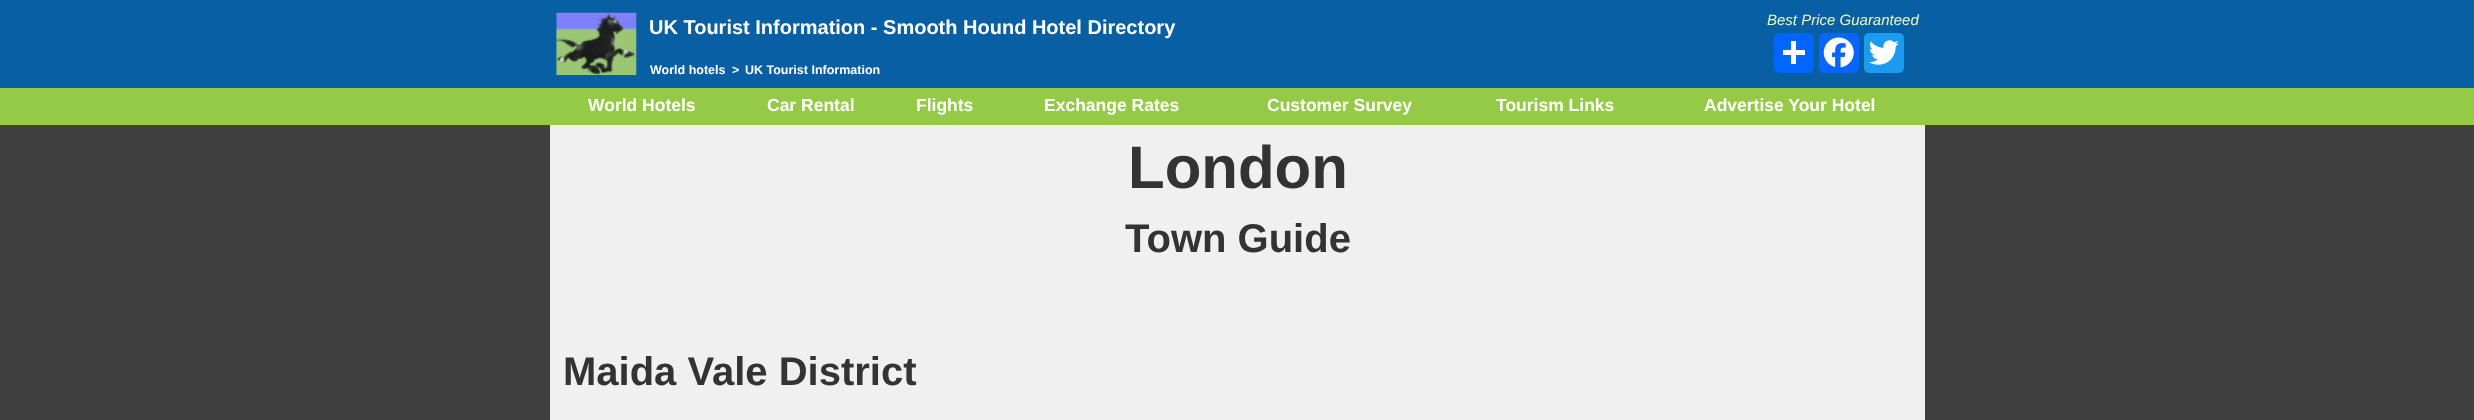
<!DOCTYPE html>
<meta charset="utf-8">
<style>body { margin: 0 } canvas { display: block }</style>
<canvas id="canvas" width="2474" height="420"></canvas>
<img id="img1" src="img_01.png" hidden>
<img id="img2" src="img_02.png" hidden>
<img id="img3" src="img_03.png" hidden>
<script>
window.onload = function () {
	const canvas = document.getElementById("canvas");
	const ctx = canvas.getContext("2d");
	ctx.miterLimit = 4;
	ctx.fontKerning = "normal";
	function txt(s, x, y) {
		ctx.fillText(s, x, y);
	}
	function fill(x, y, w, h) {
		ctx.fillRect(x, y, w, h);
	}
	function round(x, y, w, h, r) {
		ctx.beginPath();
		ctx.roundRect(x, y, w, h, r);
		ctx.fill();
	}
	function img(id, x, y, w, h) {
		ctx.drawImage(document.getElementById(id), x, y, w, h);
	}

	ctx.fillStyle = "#404040";
	fill(0, 0, 2474, 420);
	ctx.fillStyle = "#085FA3";
	fill(0, 0, 2474, 88);
	img("img1", 556, 12, 81, 63);
	ctx.fillStyle = "#0166FF";
	round(1774, 33, 40, 40, 5);
	ctx.fillStyle = "#FFFFFF";
	fill(1791, 41, 5, 23);
	fill(1783, 50, 22, 5);
	ctx.fillStyle = "#0866FF";
	round(1819, 33, 40, 40, 5);
	img("img2", 1823, 37, 31, 31);
	ctx.fillStyle = "#1D9BF0";
	round(1864, 33, 40, 40, 5);
	img("img3", 1869, 40, 30, 25);
	ctx.fillStyle = "#95CA46";
	fill(0, 88, 2474, 37);
	ctx.fillStyle = "#F0F0F0";
	fill(550, 125, 1375, 295);
	ctx.font = "bold 20px Liberation Sans";
	ctx.fillStyle = "#FFFFFF";
	txt("UK Tourist Information - Smooth Hound Hotel Directory", 649, 34);
	ctx.font = "italic 15px Liberation Sans";
	ctx.fillStyle = "#F4F8C5";
	txt("Best Price Guaranteed", 1767, 25);
	ctx.font = "bold 12.5px Liberation Sans";
	ctx.fillStyle = "#FFFFFF";
	txt("World hotels", 650, 74);
	txt(">", 732, 74);
	txt("UK Tourist Information", 745, 74);
	ctx.font = "bold 17.5px Liberation Sans";
	txt("World Hotels", 588, 111);
	txt("Car Rental", 767, 111);
	txt("Flights", 916, 111);
	txt("Exchange Rates", 1044, 111);
	txt("Customer Survey", 1267, 111);
	txt("Tourism Links", 1496, 111);
	txt("Advertise Your Hotel", 1704, 111);
	ctx.font = "bold 60px Liberation Sans";
	ctx.fillStyle = "#333333";
	txt("London", 1128, 188);
	ctx.font = "bold 40px Liberation Sans";
	txt("Town Guide", 1125, 252);
	txt("Maida Vale District", 563, 385);
};
</script>
